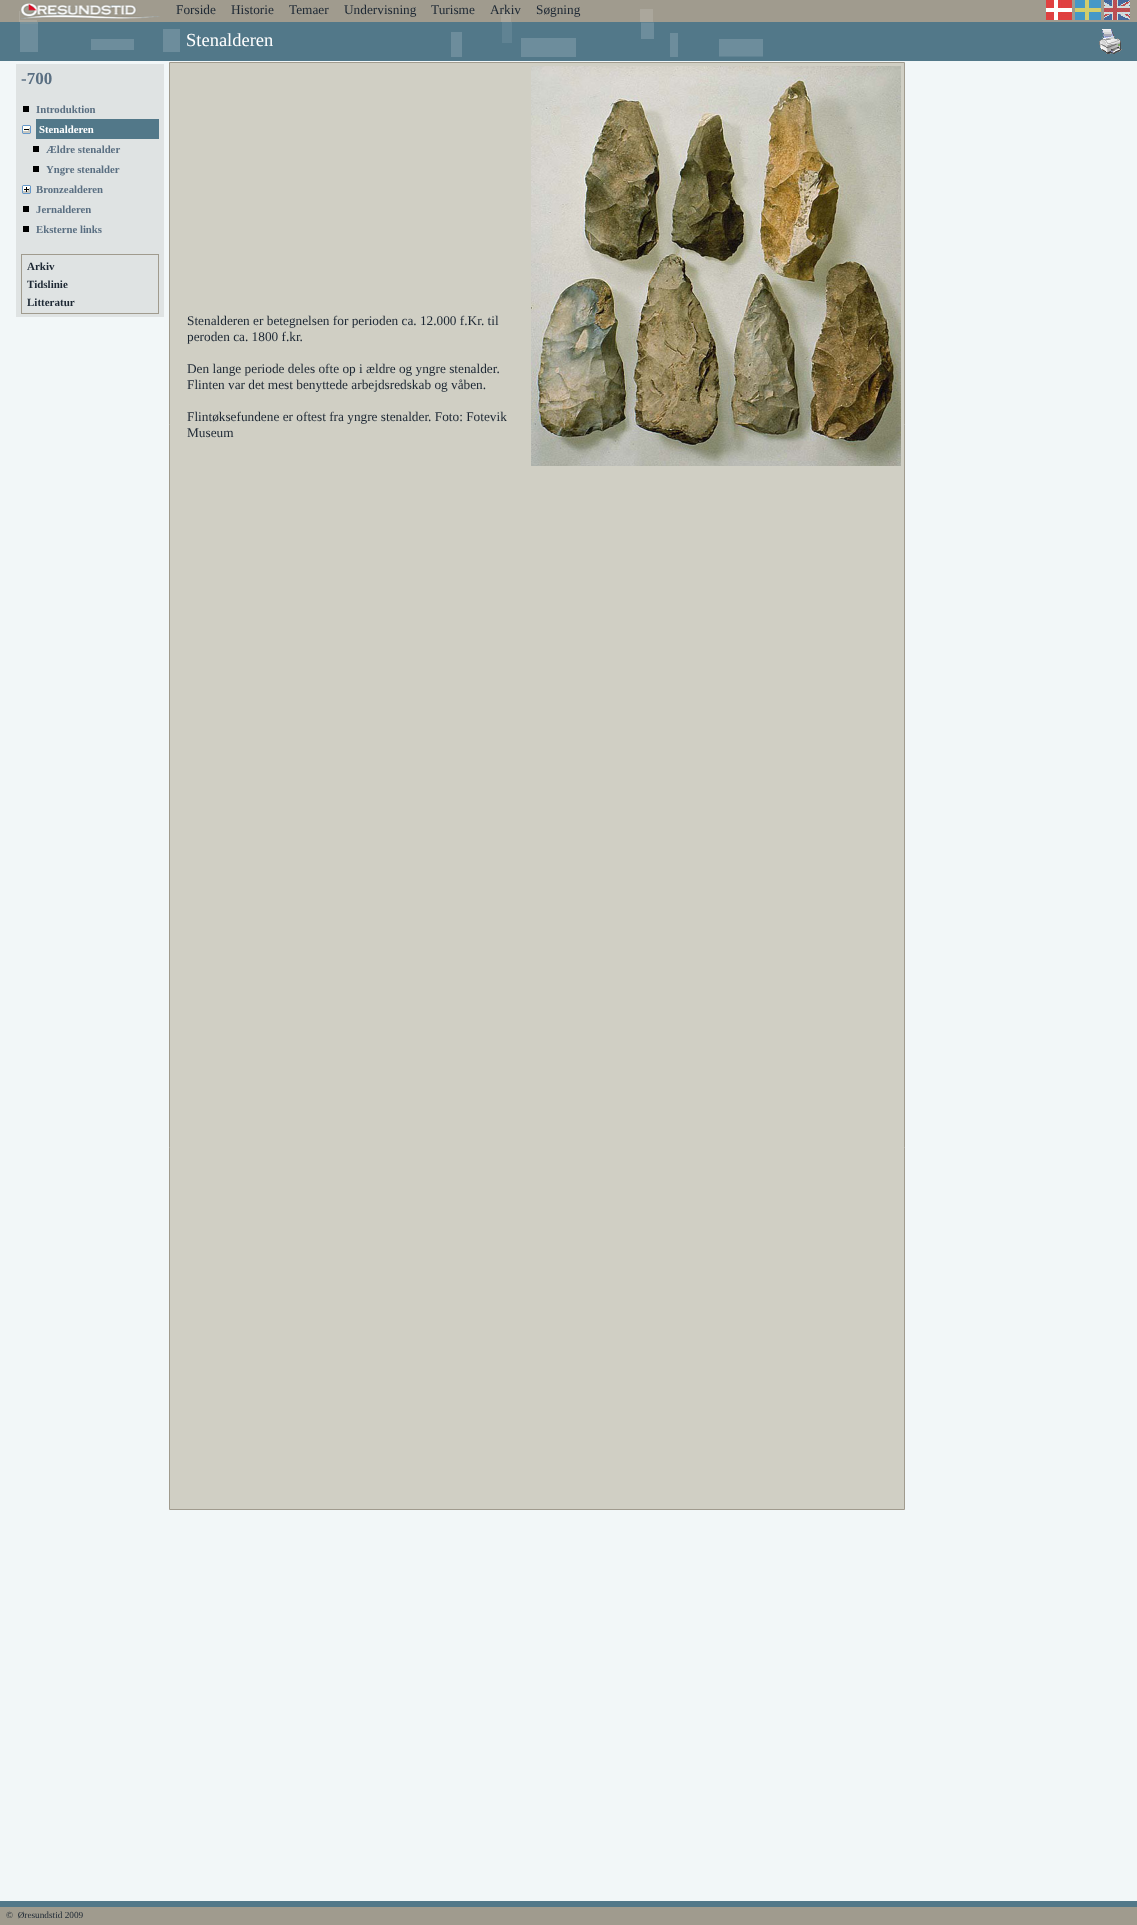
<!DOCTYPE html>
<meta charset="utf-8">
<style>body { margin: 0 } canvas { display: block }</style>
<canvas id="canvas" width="1137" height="1925"></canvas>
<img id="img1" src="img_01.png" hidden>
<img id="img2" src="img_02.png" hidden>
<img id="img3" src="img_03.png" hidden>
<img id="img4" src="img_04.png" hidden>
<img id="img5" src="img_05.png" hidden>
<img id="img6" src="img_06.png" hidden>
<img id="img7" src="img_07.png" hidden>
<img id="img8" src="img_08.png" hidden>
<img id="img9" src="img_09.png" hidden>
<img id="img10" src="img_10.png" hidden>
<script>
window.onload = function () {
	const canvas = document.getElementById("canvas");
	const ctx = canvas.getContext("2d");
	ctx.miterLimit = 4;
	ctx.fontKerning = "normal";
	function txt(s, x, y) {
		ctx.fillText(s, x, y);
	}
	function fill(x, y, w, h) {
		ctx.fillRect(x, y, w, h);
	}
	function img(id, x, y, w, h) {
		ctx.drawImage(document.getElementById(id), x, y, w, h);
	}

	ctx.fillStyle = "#F2F7F8";
	fill(0, 0, 1137, 1925);
	ctx.fillStyle = "#A09B8E";
	fill(0, 0, 1137, 22);
	img("img1", 19, 9, 634, 13);
	img("img2", 20, 3, 140, 17);
	ctx.fillStyle = "#527889";
	fill(0, 22, 1137, 39);
	img("img3", 20, 22, 743, 35);
	img("img4", 1099, 29, 23, 25);
	img("img5", 1046, 0, 26, 20);
	img("img6", 1075, 0, 26, 20);
	img("img7", 1104, 0, 26, 20);
	ctx.fillStyle = "#DFE3E3";
	fill(16, 64, 148, 253);
	ctx.fillStyle = "#000000";
	fill(23, 106, 6, 6);
	img("img8", 22, 125, 9, 9);
	ctx.fillStyle = "#527889";
	fill(36, 119, 123, 20);
	ctx.fillStyle = "#000000";
	fill(33, 146, 6, 6);
	fill(33, 166, 6, 6);
	img("img9", 22, 185, 9, 9);
	fill(23, 206, 6, 6);
	fill(23, 226, 6, 6);
	ctx.strokeStyle = "#A09B8E";
	ctx.strokeRect(21.5, 254.5, 137, 59);
	ctx.fillStyle = "#D0CFC4";
	ctx.beginPath();
	ctx.rect(169.5, 62.5, 735, 1447);
	ctx.fill();
	ctx.stroke();
	img("img10", 531, 66, 370, 400);
	ctx.fillStyle = "#A09B8E";
	fill(0, 1907, 1137, 18);
	ctx.fillStyle = "#527889";
	fill(0, 1901, 1137, 6);
	ctx.font = "13.3px Liberation Serif";
	ctx.fillStyle = "#1C2733";
	txt("Forside", 176, 14);
	txt("Historie", 231, 14);
	txt("Temaer", 289, 14);
	txt("Undervisning", 344, 14);
	txt("Turisme", 431, 14);
	txt("Arkiv", 490, 14);
	txt("Søgning", 536, 14);
	ctx.font = "18.5px Liberation Serif";
	ctx.fillStyle = "#FFFFFF";
	txt("Stenalderen", 186, 46);
	ctx.font = "bold 17px Liberation Serif";
	ctx.fillStyle = "#5A6F82";
	txt("-700", 21, 84);
	ctx.font = "bold 10.75px Liberation Serif";
	txt("Introduktion", 36, 113);
	ctx.fillStyle = "#FFFFFF";
	txt("Stenalderen", 39, 133);
	ctx.fillStyle = "#5A6F82";
	txt("Ældre stenalder", 46, 153);
	txt("Yngre stenalder", 46, 173);
	txt("Bronzealderen", 36, 193);
	txt("Jernalderen", 36, 213);
	txt("Eksterne links", 36, 233);
	ctx.font = "bold 11px Liberation Serif";
	ctx.fillStyle = "#1C2733";
	txt("Arkiv", 27, 270);
	txt("Tidslinie", 27, 288);
	txt("Litteratur", 27, 306);
	ctx.font = "13.3px Liberation Serif";
	txt("Stenalderen er betegnelsen for perioden ca. 12.000 f.Kr. til", 187, 325);
	txt("peroden ca. 1800 f.kr.", 187, 341);
	txt("Den lange periode deles ofte op i ældre og yngre stenalder.", 187, 373);
	txt("Flinten var det mest benyttede arbejdsredskab og våben.", 187, 389);
	txt("Flintøksefundene er oftest fra yngre stenalder. Foto: Fotevik", 187, 421);
	txt("Museum", 187, 437);
	ctx.font = "9.25px Liberation Serif";
	txt("©  Øresundstid 2009", 6, 1918);
};
</script>
